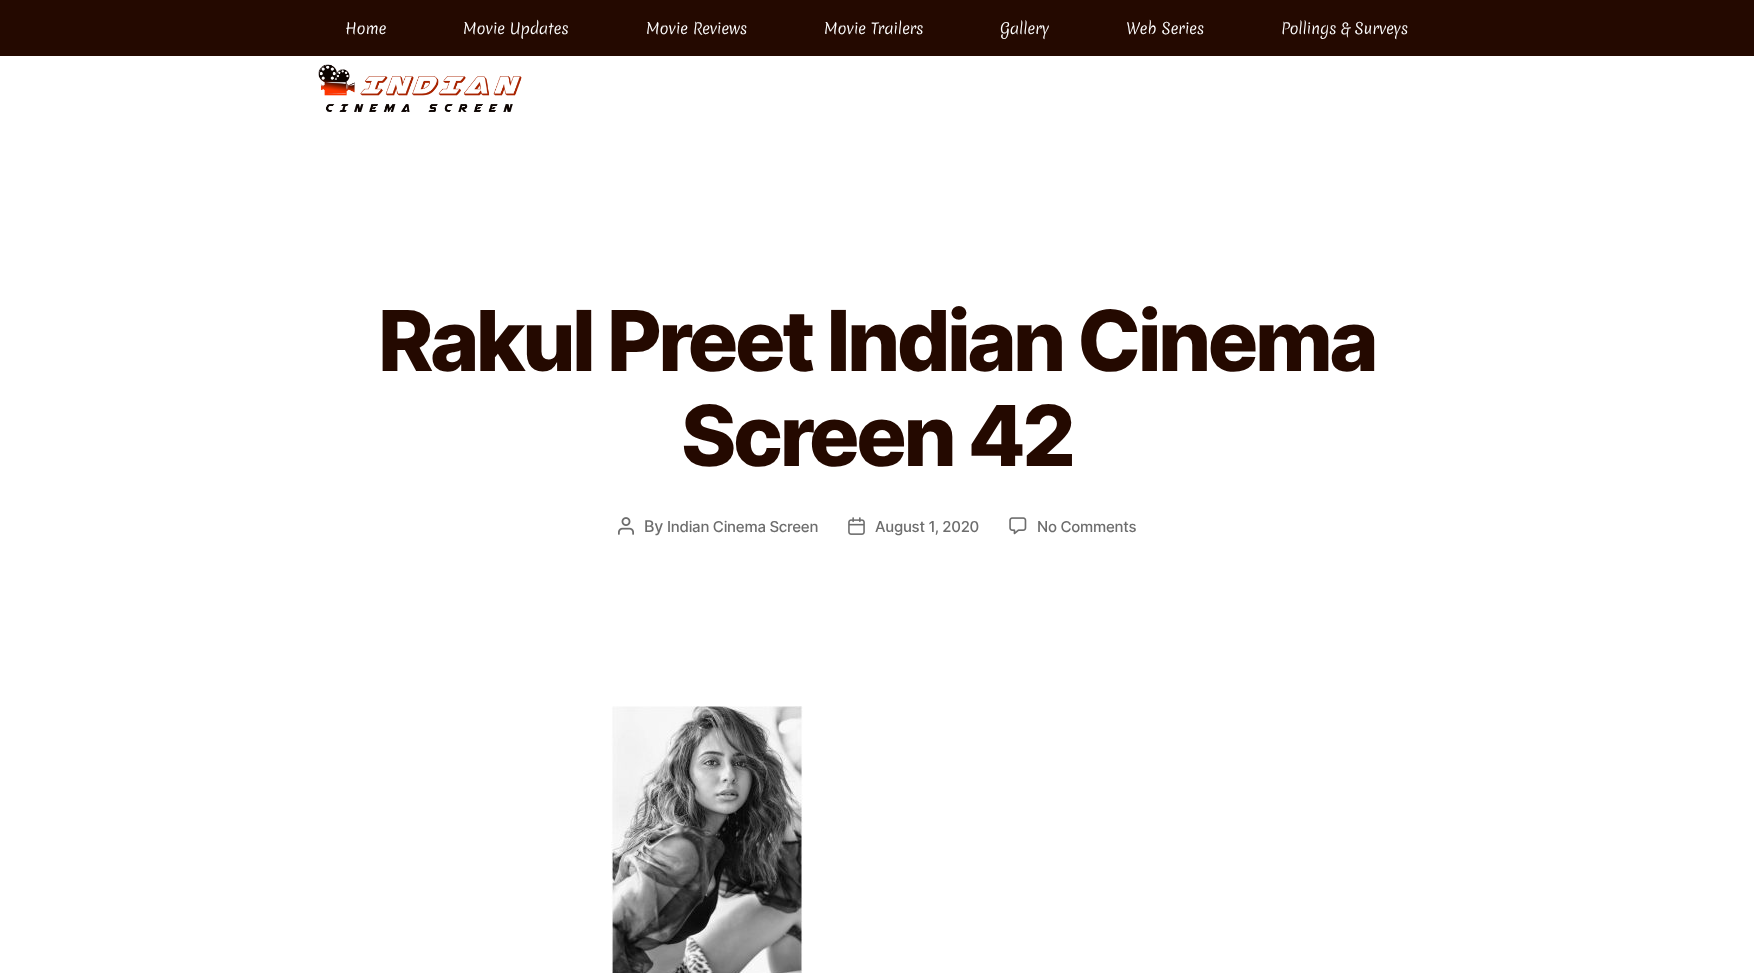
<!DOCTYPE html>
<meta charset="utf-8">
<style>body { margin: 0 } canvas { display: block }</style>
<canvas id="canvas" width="1754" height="973"></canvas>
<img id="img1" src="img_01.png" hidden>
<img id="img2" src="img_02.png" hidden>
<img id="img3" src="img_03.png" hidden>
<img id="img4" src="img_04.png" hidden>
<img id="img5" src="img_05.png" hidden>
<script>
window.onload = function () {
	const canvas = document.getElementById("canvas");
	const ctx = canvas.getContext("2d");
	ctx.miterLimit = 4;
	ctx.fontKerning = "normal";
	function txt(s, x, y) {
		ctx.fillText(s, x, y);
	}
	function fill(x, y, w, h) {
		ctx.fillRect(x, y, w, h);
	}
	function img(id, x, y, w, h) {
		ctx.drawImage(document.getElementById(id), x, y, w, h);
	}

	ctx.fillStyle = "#FFFFFF";
	fill(0, 0, 1754, 973);
	ctx.fillStyle = "#240900";
	fill(0, 0, 1754, 56);
	img("img1", 318, 64, 204, 48);
	img("img2", 618, 517, 16, 18);
	img("img3", 848, 517, 17, 18);
	img("img4", 1009, 517, 18, 18);
	img("img5", 611, 706, 192, 267);
	ctx.letterSpacing = "-0.25px";
	ctx.font = "300 15px Merienda";
	ctx.fillStyle = "#FFFFFF";
	txt("Home", 345, 34);
	txt("Movie Updates", 463, 34);
	txt("Movie Reviews", 646, 34);
	txt("Movie Trailers", 824, 34);
	txt("Gallery", 1000, 34);
	txt("Web Series", 1126, 34);
	txt("Pollings & Surveys", 1281, 34);
	ctx.letterSpacing = "-3.5px";
	ctx.font = "800 84px Inter";
	ctx.fillStyle = "#240900";
	txt("Rakul Preet Indian Cinema", 378, 371);
	txt("Screen 42", 681, 466);
	ctx.letterSpacing = "-0.25px";
	ctx.font = "500 16px Inter";
	ctx.fillStyle = "#6D6D6D";
	txt("By", 644, 532);
	ctx.font = "500 15px Inter";
	txt("Indian Cinema Screen", 667, 532);
	txt("August 1, 2020", 875, 532);
	txt("No Comments", 1037, 532);
};
</script>
